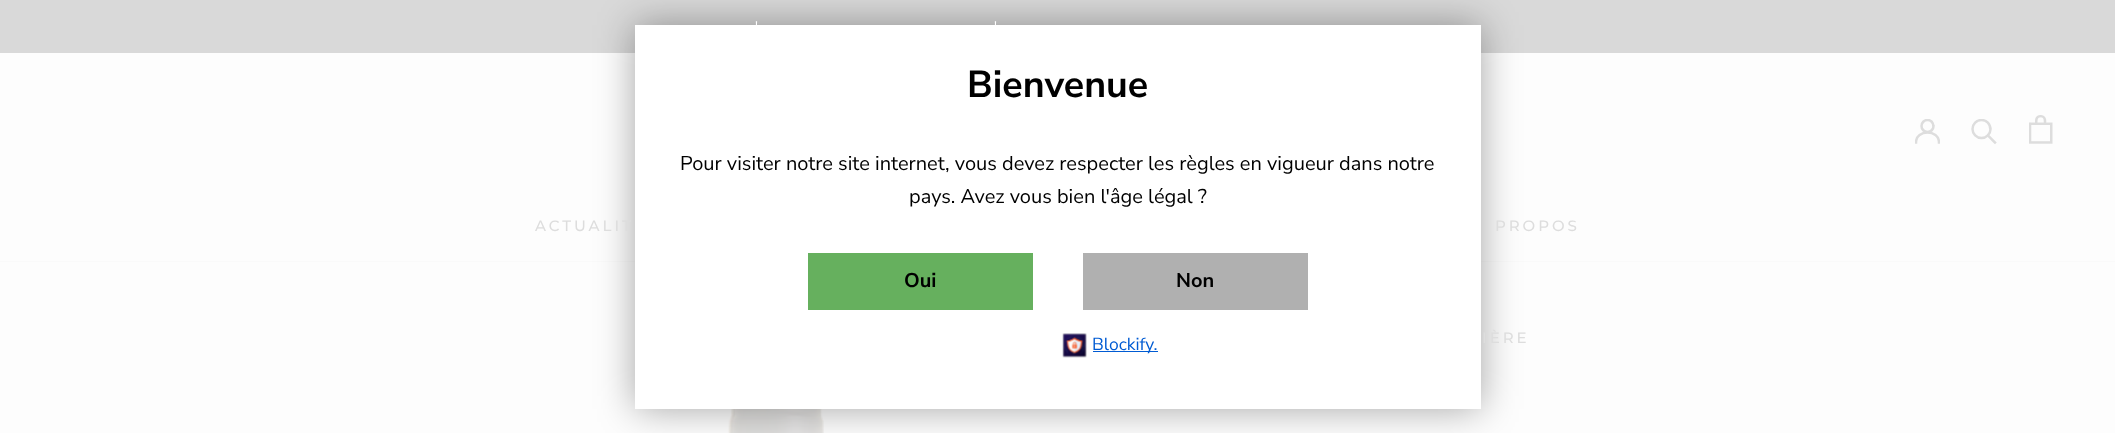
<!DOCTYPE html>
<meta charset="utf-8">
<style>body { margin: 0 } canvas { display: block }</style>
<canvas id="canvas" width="2115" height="433"></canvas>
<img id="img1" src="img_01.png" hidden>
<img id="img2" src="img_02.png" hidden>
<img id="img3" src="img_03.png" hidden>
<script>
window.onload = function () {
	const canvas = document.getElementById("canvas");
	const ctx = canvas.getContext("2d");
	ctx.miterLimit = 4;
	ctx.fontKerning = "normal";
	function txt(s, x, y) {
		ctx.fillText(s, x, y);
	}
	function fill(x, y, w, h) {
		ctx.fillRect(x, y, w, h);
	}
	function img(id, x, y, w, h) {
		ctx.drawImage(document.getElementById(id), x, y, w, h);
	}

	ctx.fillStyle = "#FDFDFD";
	fill(0, 0, 2115, 433);
	ctx.fillStyle = "#D9D9D9";
	fill(0, 0, 2115, 53);
	ctx.fillStyle = "#FAFAFA";
	fill(0, 261, 2115, 1);
	ctx.save();
	ctx.beginPath();
	ctx.rect(1915, 119, 25, 25);
	ctx.clip();
	ctx.beginPath();
	ctx.moveTo(1916, 142.5);
	ctx.bezierCurveTo(1916, 129, 1939, 129, 1939, 142.5);
	ctx.strokeStyle = "#DDDDDD";
	ctx.lineWidth = 2.5;
	ctx.lineCap = "square";
	ctx.stroke();
	ctx.beginPath();
	ctx.arc(1927.5, 126, 6, 0, Math.PI * 2);
	ctx.stroke();
	ctx.restore();
	ctx.beginPath();
	ctx.moveTo(1995, 142.5);
	ctx.lineTo(1988, 135.5);
	ctx.strokeStyle = "#DDDDDD";
	ctx.lineWidth = 2.5;
	ctx.lineCap = "square";
	ctx.stroke();
	ctx.save();
	ctx.beginPath();
	ctx.rect(1971, 119, 27, 26);
	ctx.clip();
	ctx.beginPath();
	ctx.arc(1981.5, 129, 9, 0, Math.PI * 2);
	ctx.stroke();
	ctx.restore();
	img("img1", 2029, 115, 24, 29);
	img("img2", 727, 409, 97, 24);
	ctx.fillStyle = "rgba(0, 0, 0, 0.35)";
	ctx.filter = "blur(19px)";
	ctx.beginPath();
	ctx.rect(635, 25, 846, 384);
	ctx.fill();
	ctx.filter = "none";
	ctx.fillStyle = "#FFFFFF";
	fill(635, 25, 846, 384);
	ctx.fillStyle = "#66B05E";
	fill(808, 253, 225, 57);
	ctx.fillStyle = "#B0B0B0";
	fill(1083, 253, 225, 57);
	img("img3", 1062, 333, 25, 25);
	ctx.fillStyle = "#005BD3";
	fill(1093, 351, 65, 1);
	ctx.letterSpacing = "3px";
	ctx.font = "500 14px Montserrat";
	ctx.fillStyle = "#FFFFFF";
	txt("'", 755, 31);
	txt("'", 994, 31);
	ctx.font = "500 15px Montserrat";
	ctx.fillStyle = "#DDDDDD";
	txt("ACTUALIT", 535, 231);
	txt("PROPOS", 1495, 231);
	txt("IÈRE", 1482, 343);
	ctx.letterSpacing = "0px";
	ctx.font = "bold 37.5px Nunito Sans";
	ctx.fillStyle = "#000000";
	txt("Bienvenue", 967, 97);
	ctx.font = "20px Nunito Sans";
	txt("Pour visiter notre site internet, vous devez respecter les règles en vigueur dans notre", 680, 170);
	txt("pays. Avez vous bien l'âge légal ?", 909, 203);
	ctx.font = "bold 20px Nunito Sans";
	txt("Oui", 904, 287);
	txt("Non", 1176, 287);
	ctx.font = "17.5px Nunito Sans";
	ctx.fillStyle = "#005BD3";
	txt("Blockify.", 1092, 350);
};
</script>
